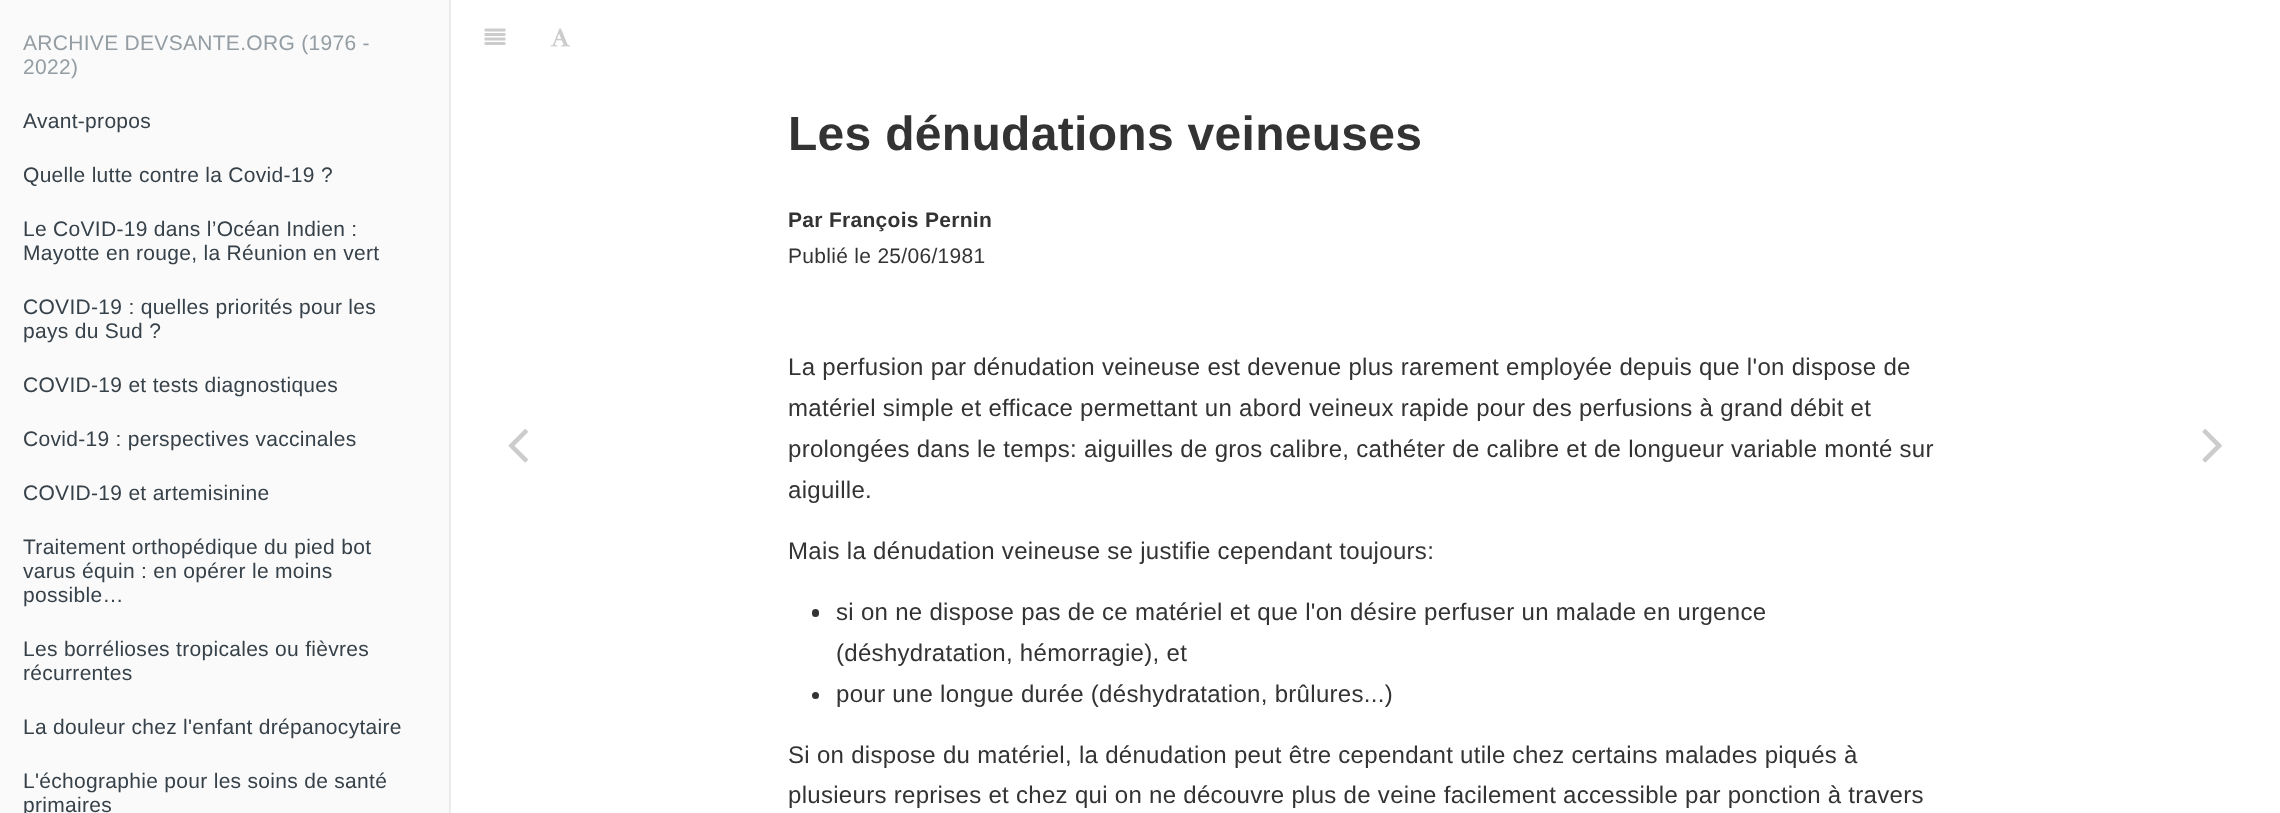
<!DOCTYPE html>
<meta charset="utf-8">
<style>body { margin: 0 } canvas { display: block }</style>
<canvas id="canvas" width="2280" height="813"></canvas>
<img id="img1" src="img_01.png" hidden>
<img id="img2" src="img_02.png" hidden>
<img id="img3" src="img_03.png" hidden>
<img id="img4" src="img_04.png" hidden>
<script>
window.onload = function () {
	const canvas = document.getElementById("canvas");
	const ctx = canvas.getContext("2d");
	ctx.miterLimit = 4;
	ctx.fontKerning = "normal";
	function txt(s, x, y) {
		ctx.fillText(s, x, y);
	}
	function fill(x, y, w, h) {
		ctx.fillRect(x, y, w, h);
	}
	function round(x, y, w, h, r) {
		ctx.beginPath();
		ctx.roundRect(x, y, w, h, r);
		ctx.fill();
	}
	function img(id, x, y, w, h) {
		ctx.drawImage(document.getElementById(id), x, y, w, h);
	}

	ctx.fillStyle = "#FFFFFF";
	fill(0, 0, 2280, 813);
	ctx.fillStyle = "#EDEDED";
	fill(450, 0, 1, 813);
	ctx.fillStyle = "#FAFAFA";
	fill(0, 0, 449, 813);
	ctx.fillStyle = "#E8E8E8";
	fill(449, 0, 1, 813);
	img("img1", 508, 429, 20, 34);
	img("img2", 484, 28, 22, 17);
	img("img3", 550, 28, 20, 19);
	ctx.fillStyle = "#333333";
	round(812, 609, 7, 8, 3.5);
	ctx.beginPath();
	ctx.arc(815.5, 695.5, 3.5, 0, Math.PI * 2);
	ctx.fill();
	img("img4", 2202, 429, 20, 34);
	ctx.letterSpacing = "0.3px";
	ctx.font = "21px Liberation Sans";
	ctx.fillStyle = "#939DA3";
	txt("ARCHIVE DEVSANTE.ORG (1976 -", 23, 50);
	txt("2022)", 23, 74);
	ctx.fillStyle = "#364149";
	txt("Avant-propos", 23, 128);
	txt("Quelle lutte contre la Covid-19 ?", 23, 182);
	txt("Le CoVID-19 dans l’Océan Indien :", 23, 236);
	txt("Mayotte en rouge, la Réunion en vert", 23, 260);
	txt("COVID-19 : quelles priorités pour les", 23, 314);
	txt("pays du Sud ?", 23, 338);
	txt("COVID-19 et tests diagnostiques", 23, 392);
	txt("Covid-19 : perspectives vaccinales", 23, 446);
	txt("COVID-19 et artemisinine", 23, 500);
	txt("Traitement orthopédique du pied bot", 23, 554);
	txt("varus équin : en opérer le moins", 23, 578);
	txt("possible…", 23, 602);
	txt("Les borrélioses tropicales ou fièvres", 23, 656);
	txt("récurrentes", 23, 680);
	txt("La douleur chez l'enfant drépanocytaire", 23, 734);
	txt("L'échographie pour les soins de santé", 23, 788);
	txt("primaires", 23, 812);
	ctx.font = "bold 48px Liberation Sans";
	ctx.fillStyle = "#333333";
	txt("Les dénudations veineuses", 788, 150);
	ctx.font = "bold 21px Liberation Sans";
	txt("Par François Pernin", 788, 227);
	ctx.font = "21px Liberation Sans";
	txt("Publié le 25/06/1981", 788, 263);
	ctx.font = "24px Liberation Sans";
	txt("La perfusion par dénudation veineuse est devenue plus rarement employée depuis que l'on dispose de", 788, 375);
	txt("matériel simple et efficace permettant un abord veineux rapide pour des perfusions à grand débit et", 788, 416);
	txt("prolongées dans le temps: aiguilles de gros calibre, cathéter de calibre et de longueur variable monté sur", 788, 457);
	txt("aiguille.", 788, 498);
	txt("Mais la dénudation veineuse se justifie cependant toujours:", 788, 559);
	txt("si on ne dispose pas de ce matériel et que l'on désire perfuser un malade en urgence", 836, 620);
	txt("(déshydratation, hémorragie), et", 836, 661);
	txt("pour une longue durée (déshydratation, brûlures...)", 836, 702);
	txt("Si on dispose du matériel, la dénudation peut être cependant utile chez certains malades piqués à", 788, 763);
	txt("plusieurs reprises et chez qui on ne découvre plus de veine facilement accessible par ponction à travers", 788, 803);
};
</script>
